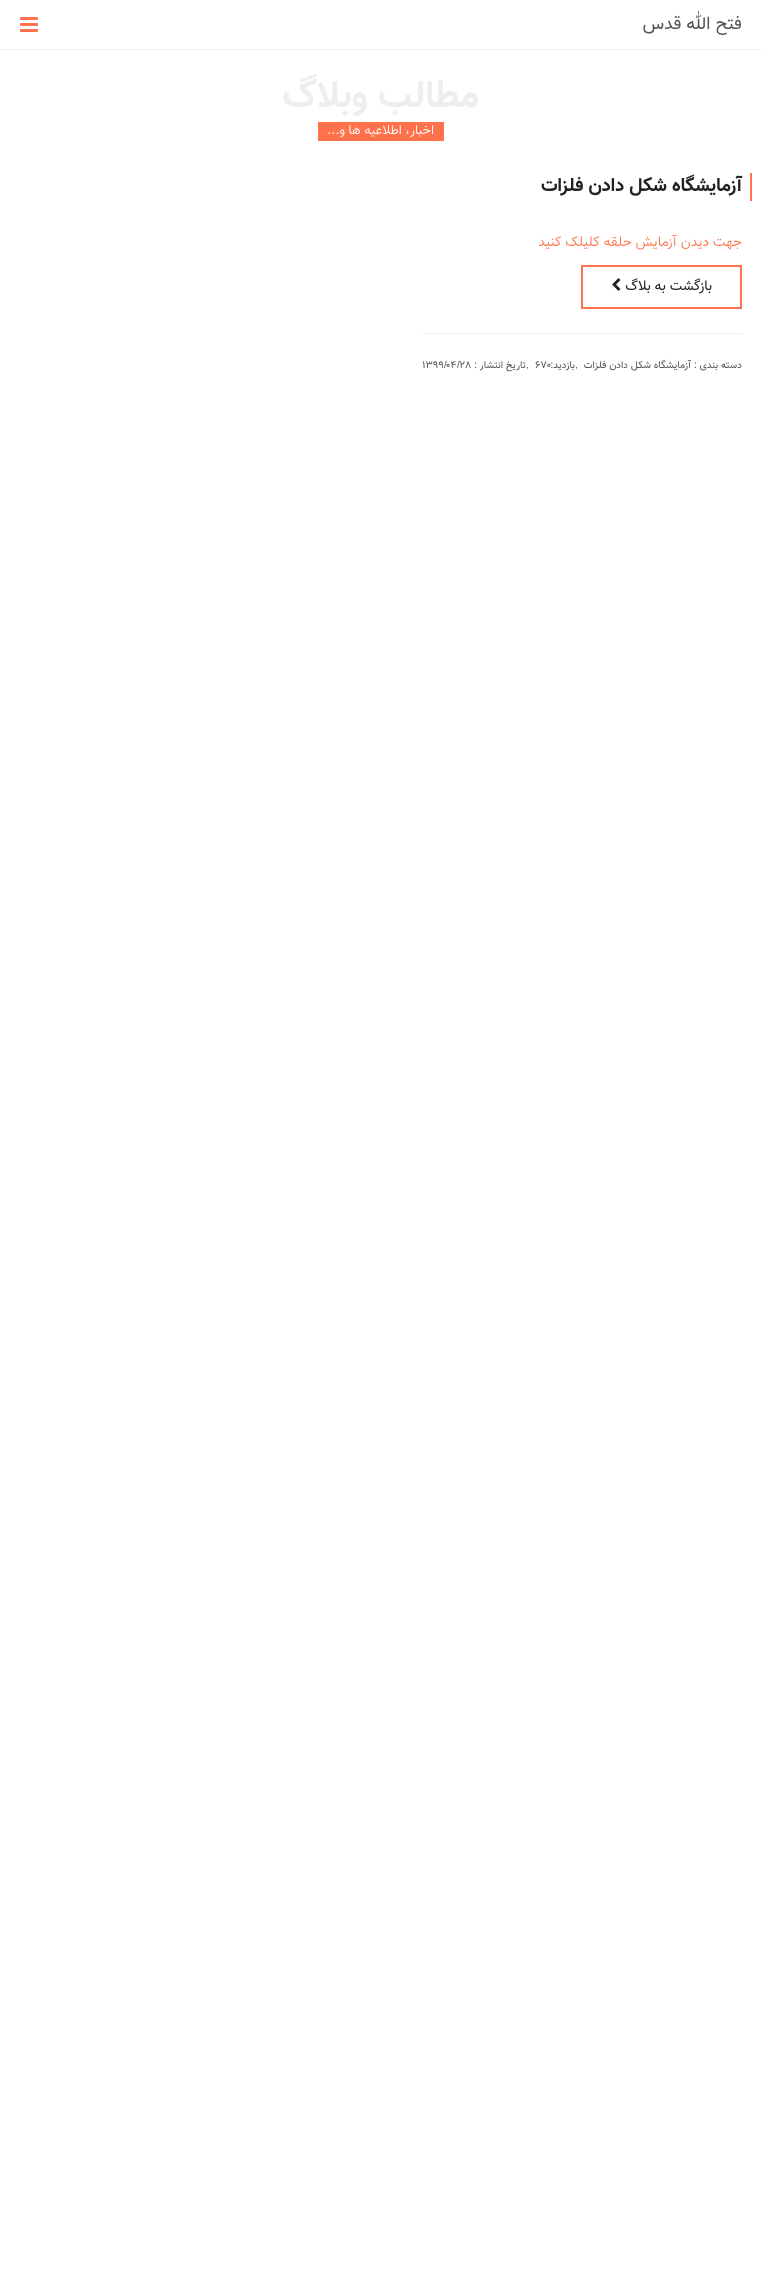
<!DOCTYPE html>
<meta charset="utf-8">
<style>body { margin: 0 } canvas { display: block }</style>
<canvas id="canvas" width="762" height="2284"></canvas>
<img id="img1" src="img_01.png" hidden>
<img id="img2" src="img_02.png" hidden>
<script>
window.onload = function () {
	const canvas = document.getElementById("canvas");
	const ctx = canvas.getContext("2d");
	ctx.miterLimit = 4;
	ctx.fontKerning = "normal";
	function txt(s, x, y) {
		ctx.fillText(s, x, y);
	}
	function fill(x, y, w, h) {
		ctx.fillRect(x, y, w, h);
	}
	function img(id, x, y, w, h) {
		ctx.drawImage(document.getElementById(id), x, y, w, h);
	}

	ctx.fillStyle = "#FFFFFF";
	fill(0, 0, 762, 2284);
	ctx.fillStyle = "#EEEEEE";
	fill(0, 49, 762, 1);
	img("img1", 20, 17, 18, 15);
	ctx.fillStyle = "#FF724C";
	fill(318, 122, 126, 19);
	fill(750, 173, 2, 28);
	ctx.strokeStyle = "#FF724C";
	ctx.lineWidth = 2;
	ctx.strokeRect(582, 266, 159, 42);
	img("img2", 612, 278, 9, 13);
	ctx.fillStyle = "#EEEEEE";
	fill(422, 333, 320, 1);
	ctx.direction = "rtl";
	ctx.font = "18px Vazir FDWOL";
	ctx.fillStyle = "#555555";
	txt("فتح الله قدس", 742, 29);
	ctx.font = "bold 38px Vazir FDWOL";
	ctx.fillStyle = "#EEEEEE";
	txt("مطالب وبلاگ", 479, 107);
	ctx.font = "300 13px Vazir FDWOL";
	ctx.fillStyle = "#FFFFFF";
	txt("اخبار، اطلاعیه ها و...", 434, 134);
	ctx.font = "bold 18.75px Vazir FDWOL";
	ctx.fillStyle = "#222222";
	txt("آزمایشگاه شکل دادن فلزات", 742, 191);
	ctx.font = "300 14px Vazir FDWOL";
	ctx.fillStyle = "#FF724C";
	txt("جهت دیدن آزمایش حلقه کلیلک کنید", 742, 246);
	ctx.font = "14px Vazir FDWOL";
	ctx.fillStyle = "#222222";
	txt("بازگشت به بلاگ", 712, 290);
	ctx.font = "10px Vazir FDWOL";
	ctx.fillStyle = "#555555";
	txt("آزمایشگاه شکل دادن فلزات", 691, 368);
	ctx.direction = "ltr";
	ctx.font = "10px Liberation Sans";
	txt("/", 444, 368);
	ctx.font = "10px Vazir FDWOL";
	txt("1399", 422, 368);
	ctx.direction = "rtl";
	txt("دسته بندی :", 742, 368);
	ctx.direction = "ltr";
	ctx.font = "10px Liberation Sans";
	txt(",", 575, 368);
	ctx.direction = "rtl";
	ctx.font = "10px Vazir FDWOL";
	txt("بازدید:", 575, 368);
	ctx.direction = "ltr";
	txt("670", 535, 368);
	ctx.font = "10px Liberation Sans";
	txt(",", 526, 368);
	ctx.direction = "rtl";
	ctx.font = "10px Vazir FDWOL";
	txt("تاریخ انتشار :", 526, 368);
	ctx.direction = "ltr";
	txt("04 28", 446, 368);
	ctx.font = "10px Liberation Sans";
	txt("/", 457, 368);
};
</script>
